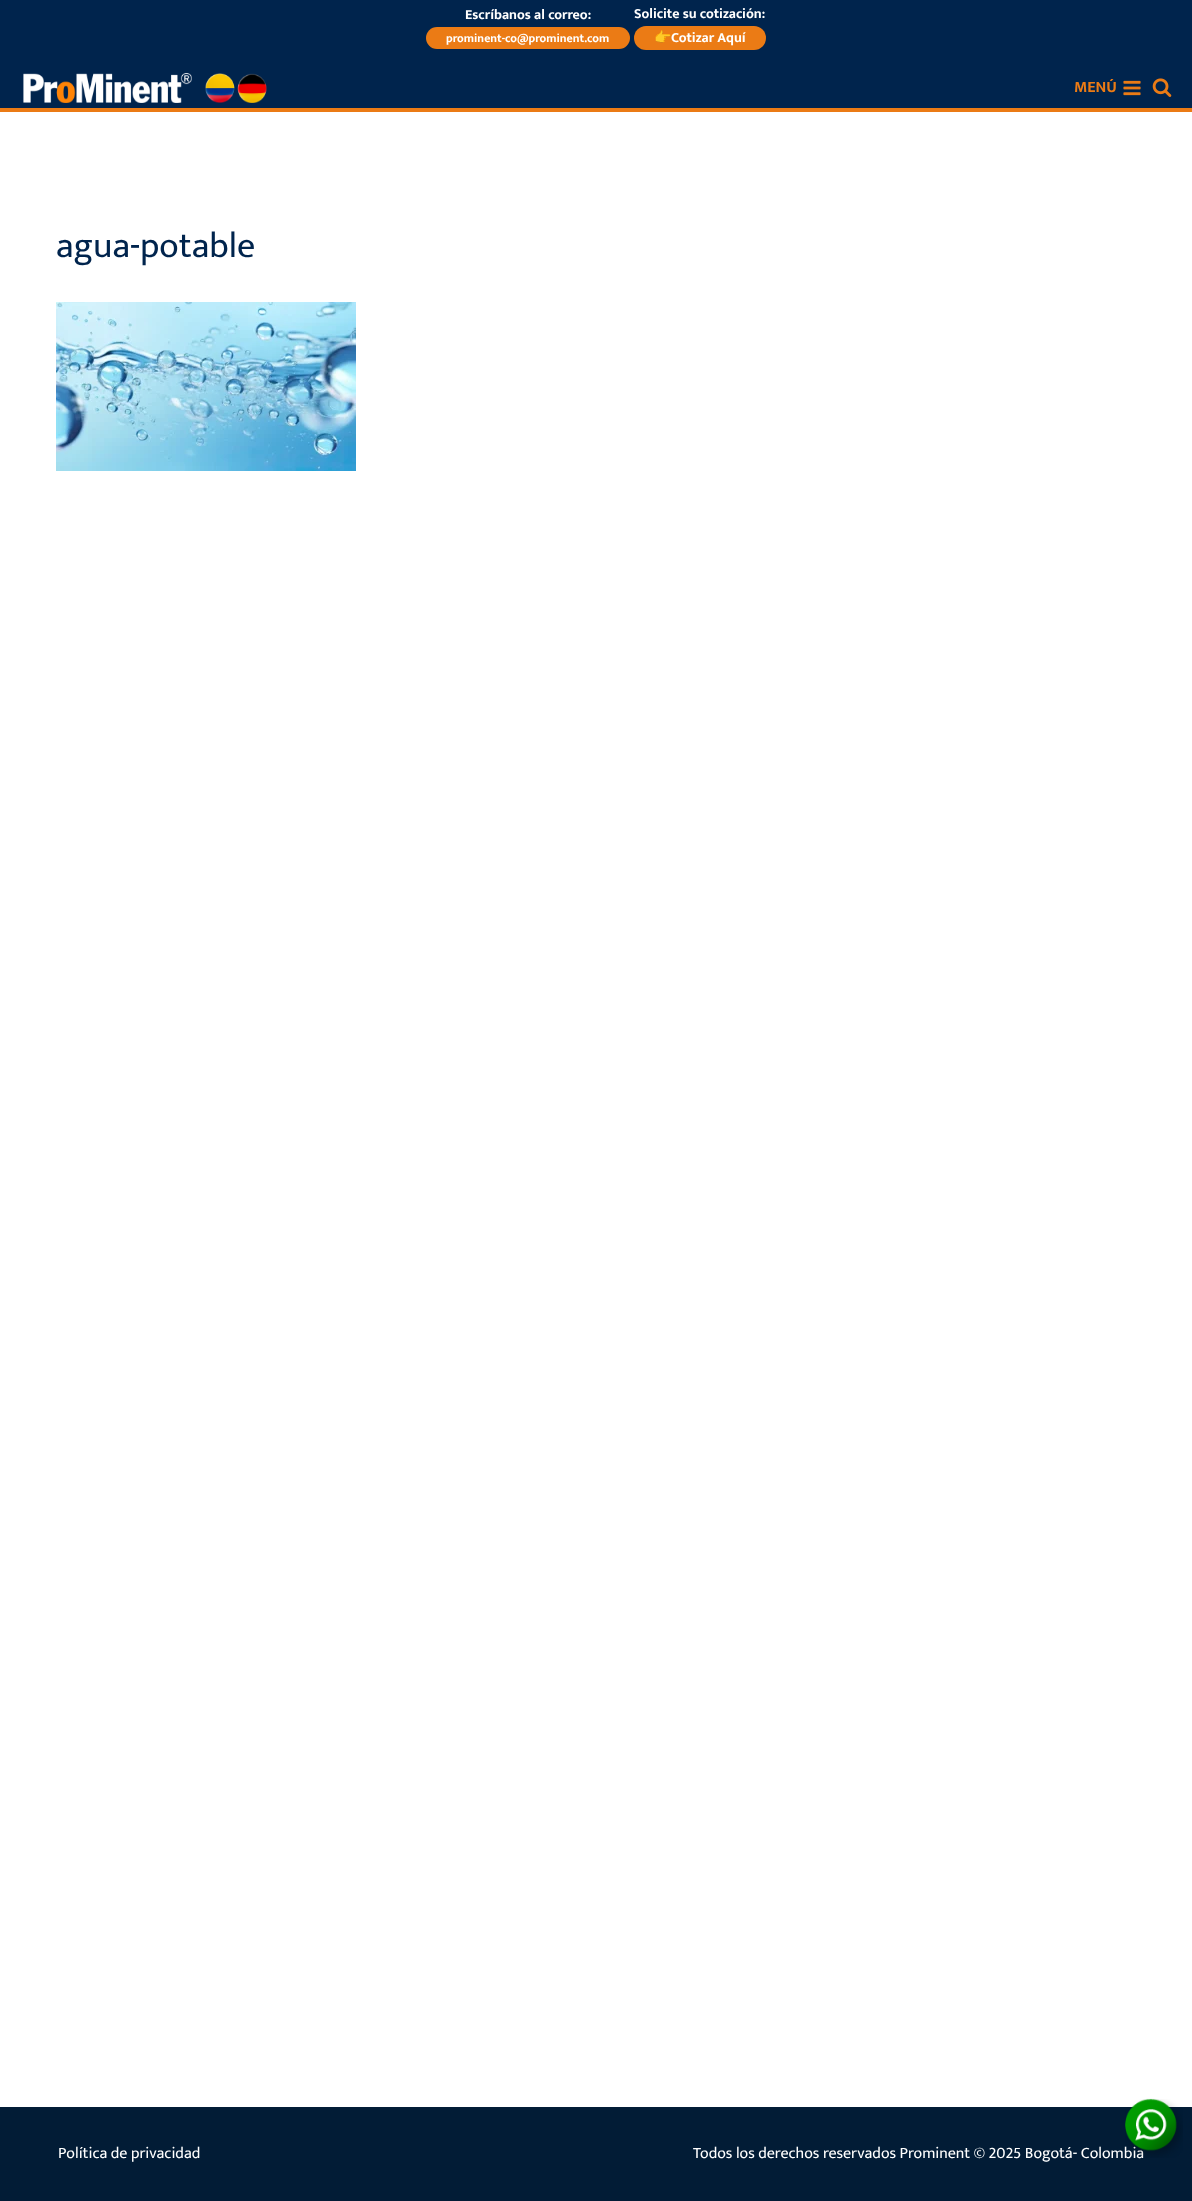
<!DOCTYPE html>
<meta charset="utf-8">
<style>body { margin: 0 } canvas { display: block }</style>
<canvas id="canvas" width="1192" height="2201"></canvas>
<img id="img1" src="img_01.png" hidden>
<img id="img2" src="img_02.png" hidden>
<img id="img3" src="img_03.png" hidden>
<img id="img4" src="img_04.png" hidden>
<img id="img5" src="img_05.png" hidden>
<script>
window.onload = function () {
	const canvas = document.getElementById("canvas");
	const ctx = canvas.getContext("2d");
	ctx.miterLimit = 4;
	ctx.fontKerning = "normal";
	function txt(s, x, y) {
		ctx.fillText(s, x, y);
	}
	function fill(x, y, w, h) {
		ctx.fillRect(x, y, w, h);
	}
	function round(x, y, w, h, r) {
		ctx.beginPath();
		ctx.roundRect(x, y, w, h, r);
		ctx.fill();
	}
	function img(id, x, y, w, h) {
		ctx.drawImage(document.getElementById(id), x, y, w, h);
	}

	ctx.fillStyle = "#FFFFFF";
	fill(0, 0, 1192, 2201);
	ctx.fillStyle = "#00244D";
	fill(0, 0, 1192, 108);
	ctx.fillStyle = "#EB7B15";
	round(426, 27, 204, 22, 11);
	round(634, 26, 132, 24, 12);
	fill(0, 108, 1192, 4);
	img("img1", 23, 73, 244, 30);
	img("img2", 1123, 80, 18, 16);
	img("img3", 1152, 78, 20, 19);
	img("img4", 56, 302, 300, 169);
	ctx.fillStyle = "#021C36";
	fill(0, 2107, 1192, 94);
	ctx.font = "bold 14px Mukta";
	ctx.fillStyle = "#FFFFFF";
	txt("Escríbanos al correo:", 465, 19);
	ctx.font = "bold 12px Mukta";
	txt("prominent-co@prominent.com", 446, 42);
	ctx.font = "bold 14px Mukta";
	txt("Solicite su cotización:", 634, 18);
	ctx.font = "bold 14px Noto Color Emoji";
	txt("👉", 654, 42);
	ctx.font = "bold 14px Mukta";
	txt("Cotizar Aquí", 671, 42);
	ctx.font = "bold 16px Mukta";
	ctx.fillStyle = "#EB7B15";
	txt("MENÚ", 1074, 92);
	ctx.font = "36px Mukta";
	ctx.fillStyle = "#00244D";
	txt("agua-potable", 56, 257);
	ctx.font = "16px Mukta";
	ctx.fillStyle = "#FFFFFF";
	txt("Política de privacidad", 58, 2158);
	txt("Todos los derechos reservados Prominent © 2025 Bogotá- Colombia", 693, 2158);
	img("img5", 1125, 2098, 58, 60);
};
</script>
